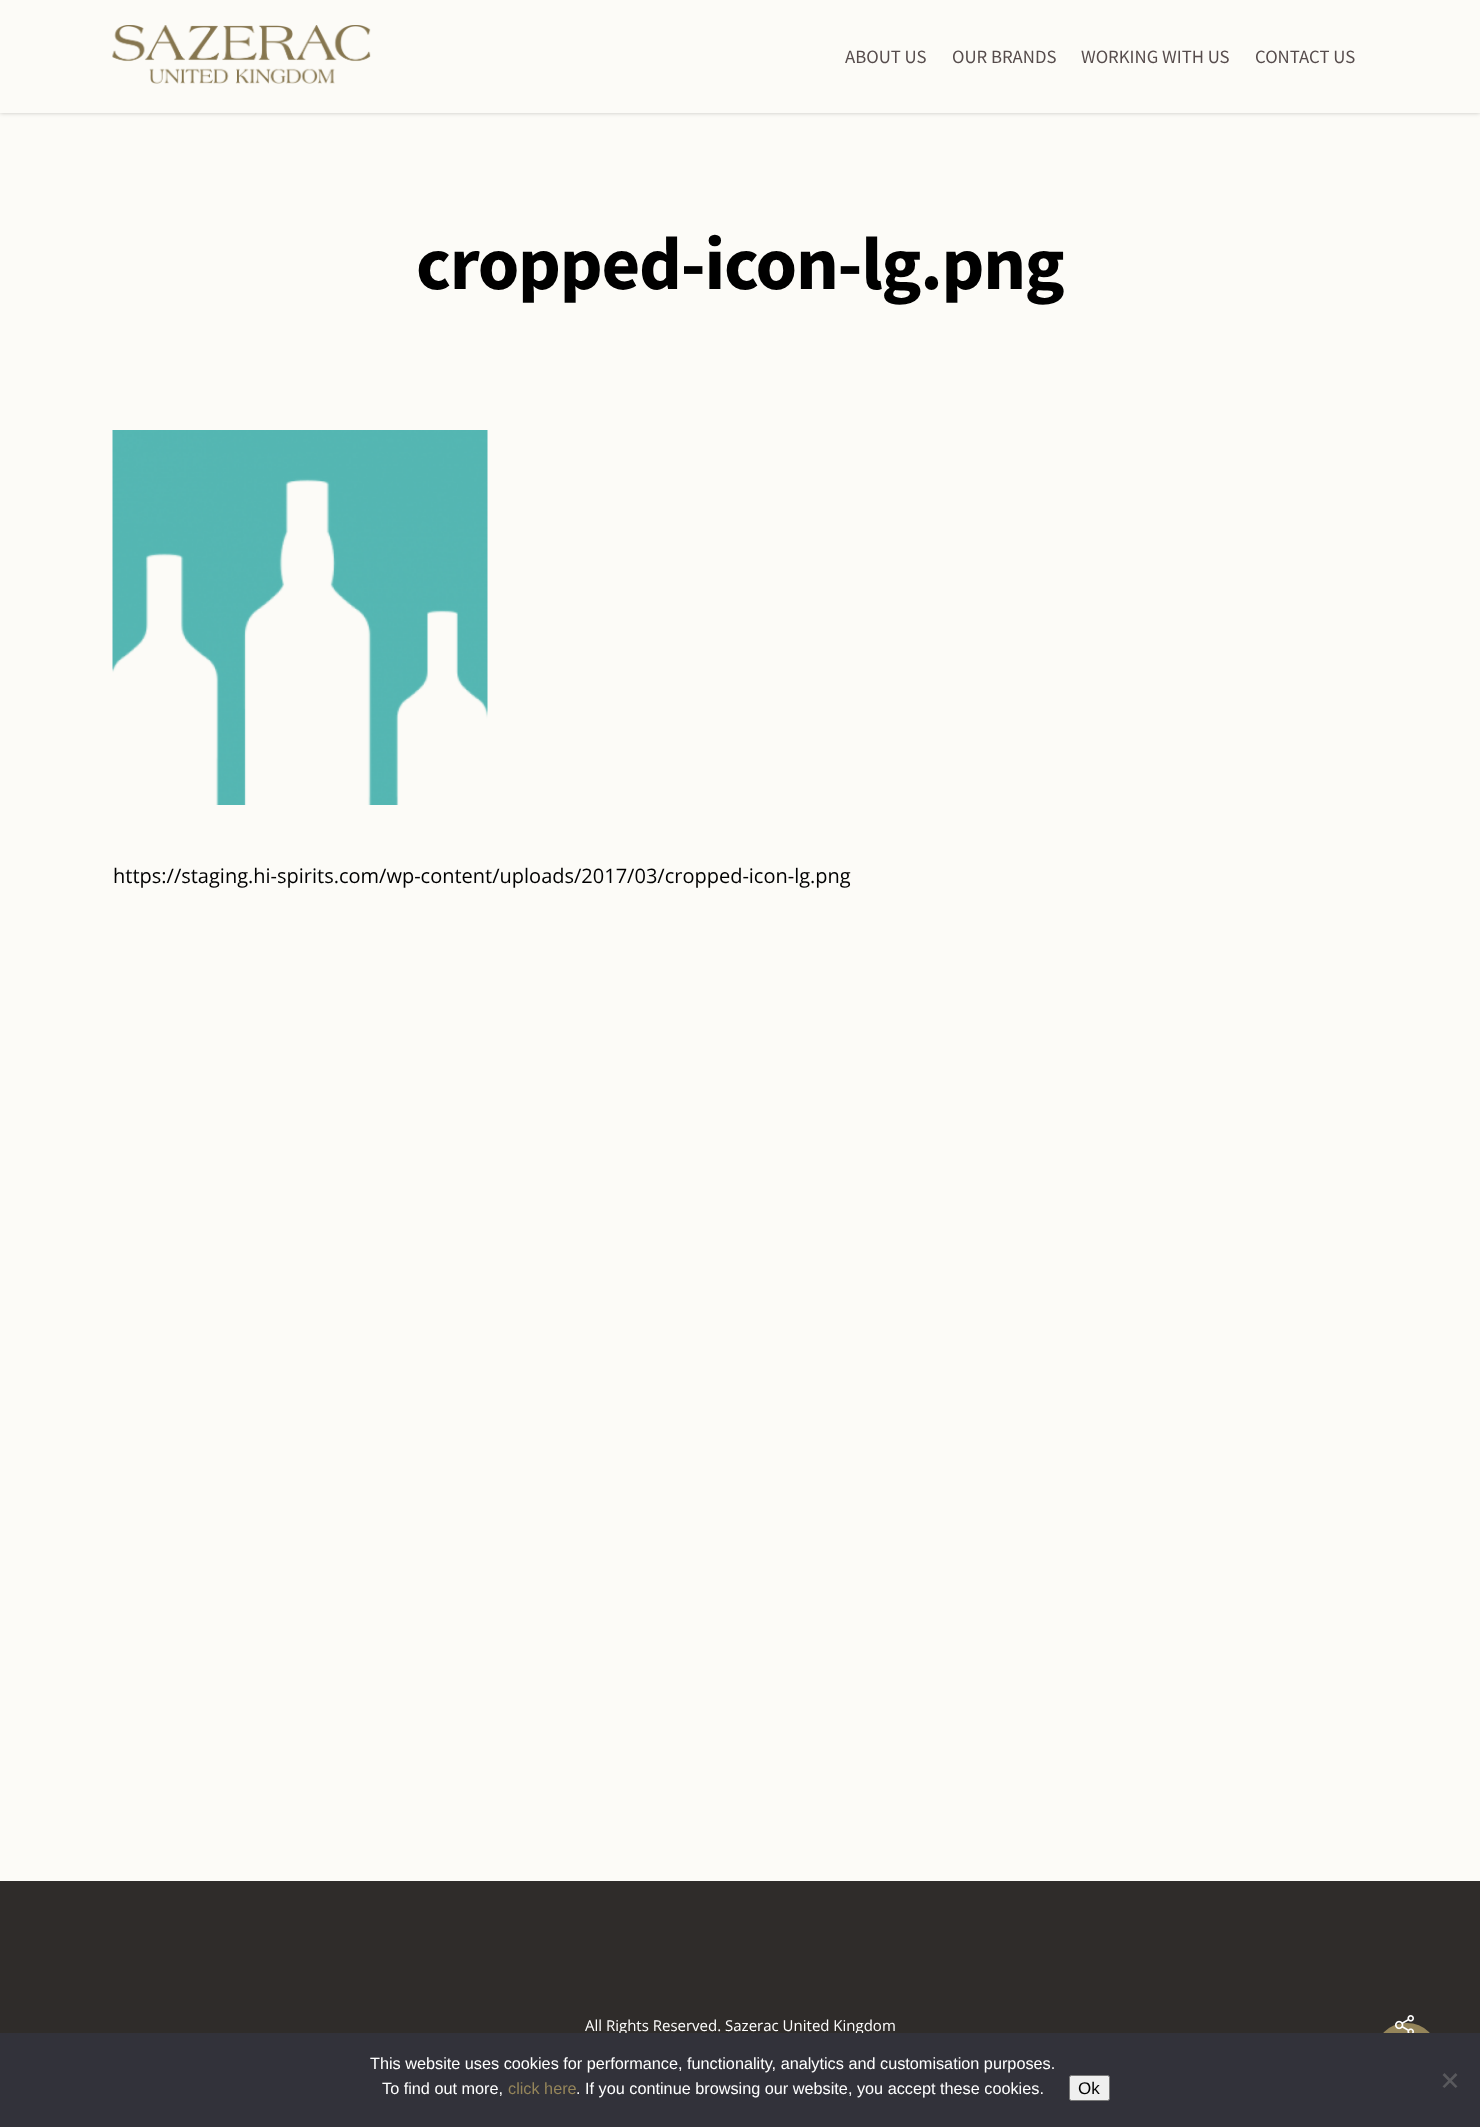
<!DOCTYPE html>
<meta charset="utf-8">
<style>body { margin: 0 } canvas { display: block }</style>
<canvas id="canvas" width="1480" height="2127"></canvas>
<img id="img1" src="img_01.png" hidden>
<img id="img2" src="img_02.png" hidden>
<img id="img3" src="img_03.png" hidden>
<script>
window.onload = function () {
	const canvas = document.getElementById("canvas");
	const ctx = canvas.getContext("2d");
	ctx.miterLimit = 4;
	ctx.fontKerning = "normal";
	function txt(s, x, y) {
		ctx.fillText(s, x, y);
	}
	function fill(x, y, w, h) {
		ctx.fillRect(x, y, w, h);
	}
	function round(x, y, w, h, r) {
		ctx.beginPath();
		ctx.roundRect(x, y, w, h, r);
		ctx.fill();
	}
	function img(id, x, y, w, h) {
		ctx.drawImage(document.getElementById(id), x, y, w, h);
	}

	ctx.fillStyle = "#FCFBF7";
	fill(0, 0, 1480, 2127);
	ctx.fillStyle = "rgba(0, 0, 0, 0.22)";
	ctx.filter = "blur(2px)";
	ctx.beginPath();
	ctx.rect(0, 0, 1480, 113);
	ctx.fill();
	ctx.filter = "none";
	ctx.fillStyle = "#FCFBF7";
	fill(0, 0, 1480, 113);
	img("img1", 112, 25, 259, 59);
	img("img2", 112, 430, 376, 375);
	ctx.fillStyle = "#2F2C2A";
	fill(0, 1881, 1480, 152);
	ctx.fillStyle = "#95855A";
	round(1375, 2023, 63, 62, 31);
	img("img3", 1395, 2015, 19, 18);
	ctx.font = "18.75px Source Sans Pro";
	ctx.fillStyle = "#564C4C";
	txt("ABOUT US", 845, 63);
	txt("OUR BRANDS", 952, 63);
	txt("WORKING WITH US", 1081, 63);
	txt("CONTACT US", 1255, 63);
	ctx.letterSpacing = "-1.25px";
	ctx.font = "bold 75px Source Sans Pro";
	ctx.fillStyle = "#000000";
	txt("cropped-icon-lg.png", 416, 289);
	ctx.letterSpacing = "0px";
	ctx.font = "20px Open Sans";
	txt("https://staging.hi-spirits.com/wp-content/uploads/2017/03/cropped-icon-lg.png", 113, 883);
	ctx.font = "15px Open Sans";
	ctx.fillStyle = "#FFFFFF";
	txt("All Rights Reserved. Sazerac United Kingdom", 585, 2031);
	ctx.fillStyle = "#32323A";
	fill(0, 2033, 1480, 94);
	ctx.font = "16.25px Liberation Sans";
	ctx.fillStyle = "#FFFFFF";
	txt("This website uses cookies for performance, functionality, analytics and customisation purposes.", 370, 2069);
	txt("To find out more,", 382, 2094);
	ctx.fillStyle = "#95855A";
	txt("click here", 508, 2094);
	ctx.fillStyle = "#FFFFFF";
	txt(". If you continue browsing our website, you accept these cookies.", 576, 2094);
	ctx.fillStyle = "#EFEFEF";
	ctx.beginPath();
	ctx.roundRect(1069.5, 2075.5, 40, 25, 2);
	ctx.fill();
	ctx.strokeStyle = "#767676";
	ctx.stroke();
	ctx.font = "17px Liberation Sans";
	ctx.fillStyle = "#000000";
	txt("Ok", 1078, 2094);
	ctx.fillStyle = "#59595D";
	ctx.beginPath();
	ctx.moveTo(1455.5, 2073);
	ctx.lineTo(1457.5, 2075);
	ctx.lineTo(1444.5, 2088);
	ctx.lineTo(1442.5, 2086.5);
	ctx.closePath();
	ctx.fill();
	ctx.beginPath();
	ctx.moveTo(1442.5, 2075);
	ctx.lineTo(1444.5, 2073);
	ctx.lineTo(1457.5, 2086.5);
	ctx.lineTo(1455.5, 2088);
	ctx.closePath();
	ctx.fill();
};
</script>
